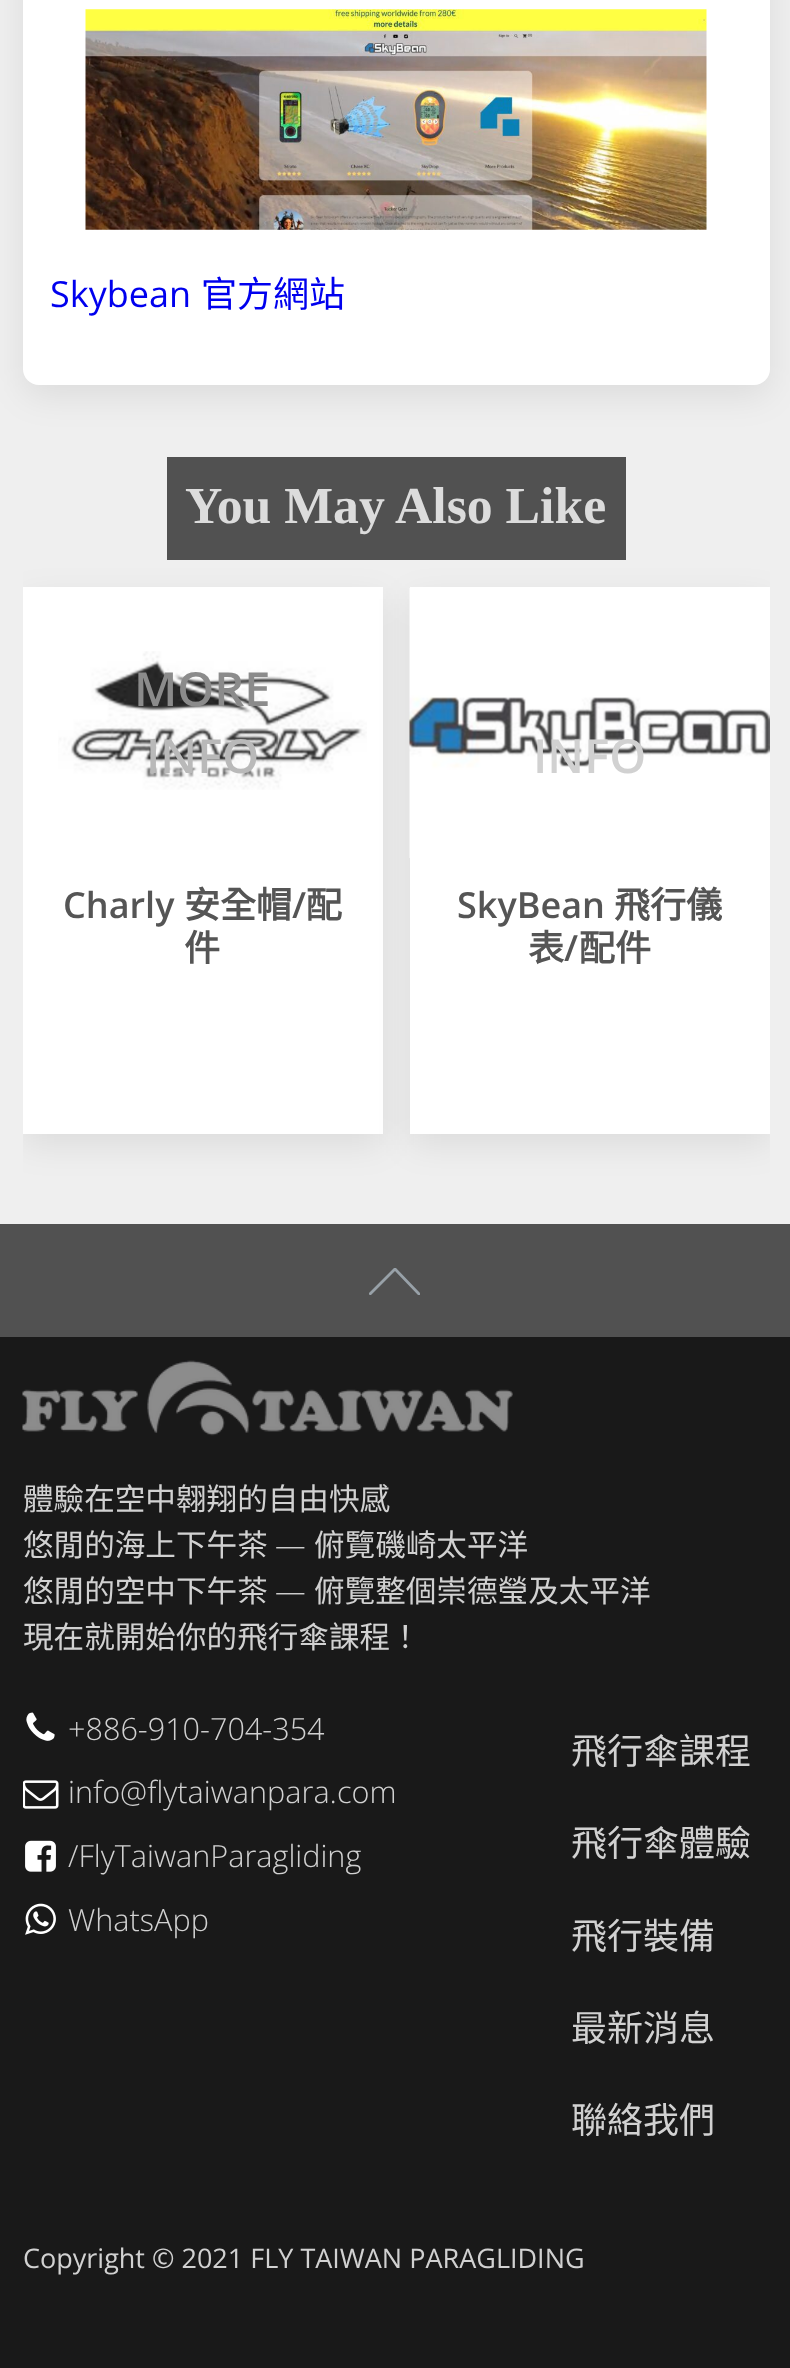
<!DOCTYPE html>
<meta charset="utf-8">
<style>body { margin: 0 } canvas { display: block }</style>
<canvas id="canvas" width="790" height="2368"></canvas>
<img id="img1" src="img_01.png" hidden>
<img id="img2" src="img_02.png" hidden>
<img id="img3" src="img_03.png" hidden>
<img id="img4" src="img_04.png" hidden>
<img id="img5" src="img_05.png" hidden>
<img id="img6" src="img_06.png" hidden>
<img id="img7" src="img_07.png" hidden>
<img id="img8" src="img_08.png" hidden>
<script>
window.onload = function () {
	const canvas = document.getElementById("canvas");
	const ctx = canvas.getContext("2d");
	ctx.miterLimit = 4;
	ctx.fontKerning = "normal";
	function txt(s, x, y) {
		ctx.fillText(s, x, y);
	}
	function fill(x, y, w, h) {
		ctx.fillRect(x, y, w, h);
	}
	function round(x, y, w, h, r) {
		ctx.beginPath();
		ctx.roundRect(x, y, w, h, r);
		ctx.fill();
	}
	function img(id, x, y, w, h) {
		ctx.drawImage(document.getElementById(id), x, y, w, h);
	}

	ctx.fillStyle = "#EFEFEF";
	fill(0, 0, 790, 2368);
	ctx.fillStyle = "rgba(0, 0, 0, 0.08)";
	ctx.filter = "blur(17px)";
	ctx.beginPath();
	ctx.roundRect(23, -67, 747, 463, 16);
	ctx.fill();
	ctx.filter = "none";
	ctx.fillStyle = "#FFFFFF";
	round(23, -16, 747, 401, 16);
	img("img1", 85, 9, 622, 221);
	ctx.fillStyle = "#515151";
	fill(167, 457, 459, 103);
	ctx.save();
	ctx.beginPath();
	ctx.rect(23, 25, 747, 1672);
	ctx.clip();
	ctx.fillStyle = "rgba(0, 0, 0, 0.08)";
	ctx.filter = "blur(17px)";
	ctx.beginPath();
	ctx.rect(23, 599, 360, 546);
	ctx.fill();
	ctx.filter = "none";
	ctx.restore();
	ctx.fillStyle = "#FFFFFF";
	fill(23, 587, 360, 547);
	img("img2", 58, 651, 309, 139);
	ctx.save();
	ctx.beginPath();
	ctx.rect(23, 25, 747, 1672);
	ctx.clip();
	ctx.fillStyle = "rgba(0, 0, 0, 0.08)";
	ctx.filter = "blur(17px)";
	ctx.beginPath();
	ctx.rect(410, 599, 360, 546);
	ctx.fill();
	ctx.filter = "none";
	ctx.restore();
	fill(410, 587, 360, 547);
	img("img3", 409, 588, 361, 270);
	ctx.fillStyle = "#191919";
	fill(0, 1337, 790, 1031);
	ctx.fillStyle = "#515151";
	fill(0, 1224, 790, 113);
	ctx.fillStyle = "#98A1A8";
	ctx.beginPath();
	ctx.moveTo(369, 1294);
	ctx.bezierCurveTo(369, 1295, 370, 1295, 371, 1295);
	ctx.lineTo(395, 1271);
	ctx.lineTo(418, 1295);
	ctx.bezierCurveTo(419, 1295, 419, 1295, 420, 1295);
	ctx.bezierCurveTo(420, 1294, 420, 1293, 420, 1293);
	ctx.lineTo(396, 1268);
	ctx.bezierCurveTo(395, 1268, 394, 1268, 394, 1268);
	ctx.lineTo(369, 1293);
	ctx.closePath();
	ctx.fill();
	img("img4", 22, 1360, 491, 76);
	img("img5", 26, 1712, 29, 29);
	img("img6", 23, 1780, 36, 29);
	img("img7", 25, 1840, 31, 32);
	img("img8", 25, 1903, 31, 32);
	ctx.font = "36px Open Sans";
	ctx.fillStyle = "#0000EE";
	txt("Skybean", 50, 307);
	ctx.font = "36px Noto Sans CJK TC";
	txt("官方網站", 201, 307);
	ctx.font = "bold 51.75px Liberation Serif";
	ctx.fillStyle = "#DCDCDC";
	txt("You May Also Like", 185, 523);
	ctx.font = "600 47px Open Sans";
	ctx.fillStyle = "#8B8B8B";
	txt("MORE", 134, 706);
	ctx.fillStyle = "#B9B9B9";
	txt("INFO", 146, 773);
	ctx.font = "600 36px Open Sans";
	ctx.fillStyle = "#555555";
	txt("Charly", 63, 918);
	ctx.font = "bold 36px Noto Sans CJK TC";
	txt("安全帽", 184, 918);
	ctx.font = "600 36px Open Sans";
	txt("/", 292, 918);
	ctx.font = "bold 36px Noto Sans CJK TC";
	txt("配", 306, 918);
	txt("件", 184, 961);
	ctx.font = "600 47px Open Sans";
	ctx.fillStyle = "#D1D1D1";
	txt("INFO", 533, 773);
	ctx.font = "600 36px Open Sans";
	ctx.fillStyle = "#555555";
	txt("SkyBean", 457, 918);
	ctx.font = "bold 36px Noto Sans CJK TC";
	txt("飛行儀", 614, 918);
	txt("表", 528, 961);
	ctx.font = "600 36px Open Sans";
	txt("/", 564, 961);
	ctx.font = "bold 36px Noto Sans CJK TC";
	txt("配件", 579, 961);
	ctx.font = "30.6px Noto Sans CJK TC";
	ctx.fillStyle = "#D1D1D1";
	txt("體驗在空中翱翔的自由快感", 23, 1510);
	txt("悠閒的海上下午茶", 23, 1556);
	ctx.font = "300 30.6px Open Sans";
	txt("—", 275, 1556);
	ctx.font = "30.6px Noto Sans CJK TC";
	txt("俯覽磯崎太平洋", 314, 1556);
	txt("悠閒的空中下午茶", 23, 1602);
	ctx.font = "300 30.6px Open Sans";
	txt("—", 275, 1602);
	ctx.font = "30.6px Noto Sans CJK TC";
	txt("俯覽整個崇德瑩及太平洋", 314, 1602);
	txt("現在就開始你的飛行傘課程！", 23, 1648);
	ctx.font = "300 30.6px Open Sans";
	txt("+886-910-704-354", 68, 1740);
	txt("info@flytaiwanpara.com", 68, 1803);
	txt("/FlyTaiwanParagliding", 68, 1867);
	txt("WhatsApp", 68, 1931);
	ctx.font = "36px Noto Sans CJK TC";
	txt("飛行傘課程", 571, 1764);
	txt("飛行傘體驗", 571, 1856);
	txt("飛行裝備", 571, 1949);
	txt("最新消息", 571, 2041);
	txt("聯絡我們", 571, 2133);
	ctx.font = "27px Open Sans";
	txt("Copyright © 2021 FLY TAIWAN PARAGLIDING", 23, 2268);
};
</script>
